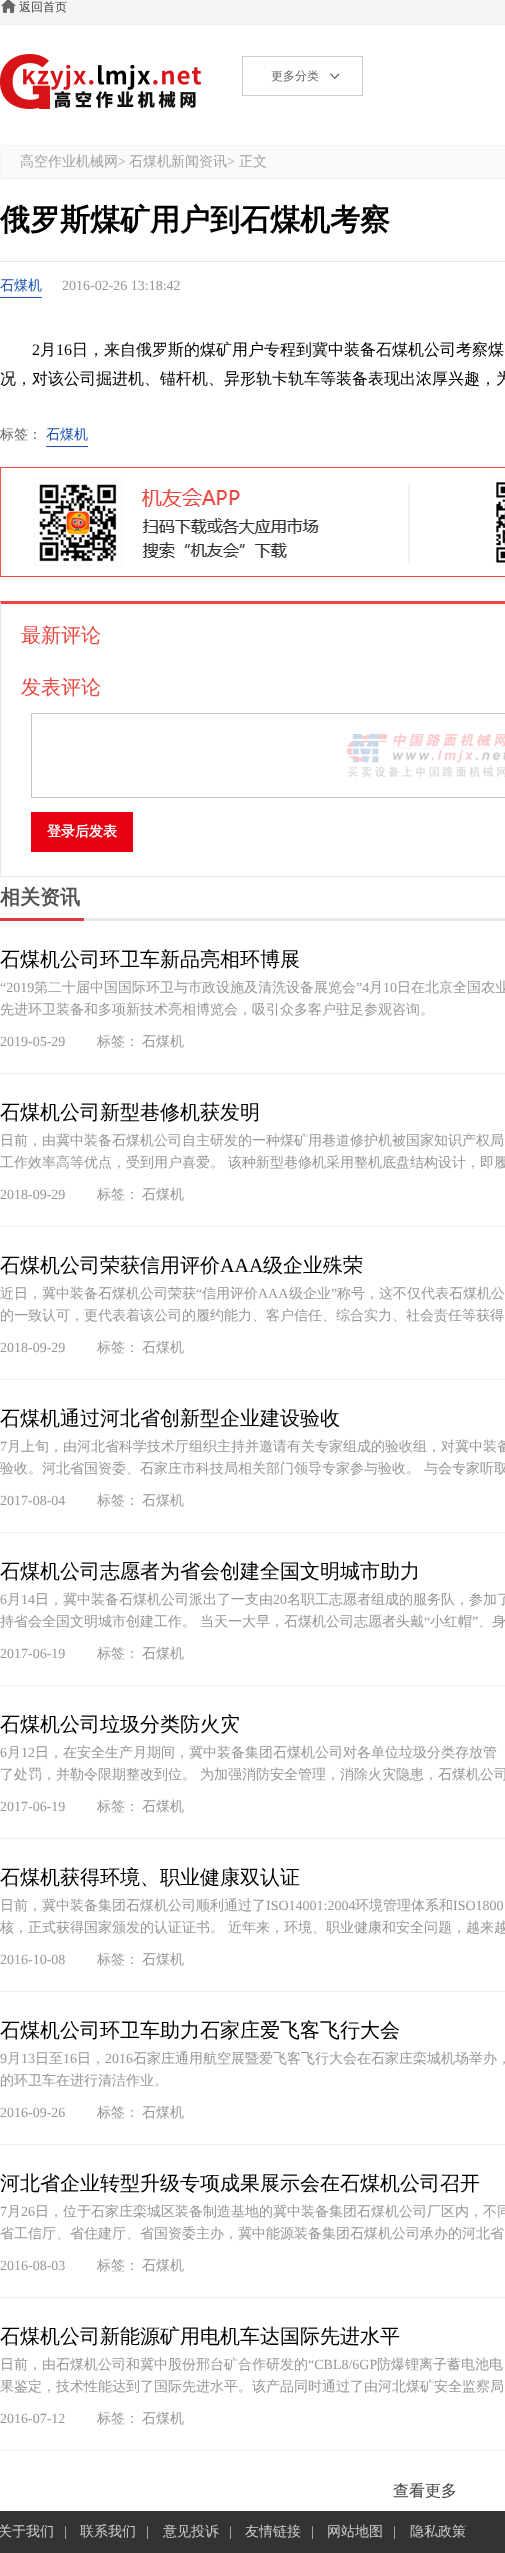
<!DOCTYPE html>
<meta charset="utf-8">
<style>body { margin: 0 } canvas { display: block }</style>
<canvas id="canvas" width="505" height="2553"></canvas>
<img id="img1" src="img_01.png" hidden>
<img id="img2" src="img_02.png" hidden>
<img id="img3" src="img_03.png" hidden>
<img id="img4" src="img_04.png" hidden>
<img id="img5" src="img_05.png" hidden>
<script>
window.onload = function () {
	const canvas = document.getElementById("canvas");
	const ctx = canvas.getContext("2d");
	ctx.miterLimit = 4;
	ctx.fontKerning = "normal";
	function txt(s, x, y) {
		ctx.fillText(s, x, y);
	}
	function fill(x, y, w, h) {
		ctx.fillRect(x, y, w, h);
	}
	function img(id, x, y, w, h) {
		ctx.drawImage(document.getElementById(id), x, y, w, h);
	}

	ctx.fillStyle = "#FFFFFF";
	fill(0, 0, 505, 2553);
	ctx.fillStyle = "#F5F5F5";
	fill(0, 0, 505, 24);
	ctx.fillStyle = "#EEEEEE";
	fill(0, 24, 505, 1);
	img("img1", 1, 0, 15, 13);
	img("img2", 0, 54, 202, 55);
	img("img3", 330, 73, 10, 6);
	ctx.strokeStyle = "#CCCCCC";
	ctx.strokeRect(242.5, 56.5, 120, 39);
	ctx.fillStyle = "#FAFAFA";
	ctx.beginPath();
	ctx.rect(0.5, 145.5, 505, 33);
	ctx.fill();
	ctx.strokeStyle = "#F5F5F5";
	ctx.stroke();
	ctx.fillStyle = "#E5E5E5";
	fill(0, 261, 505, 1);
	ctx.fillStyle = "#194EB3";
	fill(0, 297, 42, 1);
	fill(46, 446, 42, 1);
	img("img4", 0, 467, 505, 110);
	ctx.fillStyle = "#E94740";
	ctx.beginPath();
	ctx.moveTo(0, 601);
	ctx.lineTo(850, 601);
	ctx.lineTo(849, 604);
	ctx.lineTo(1, 604);
	ctx.closePath();
	ctx.fill();
	ctx.fillStyle = "#E8E8E8";
	fill(0, 876, 505, 1);
	ctx.beginPath();
	ctx.moveTo(0, 877);
	ctx.lineTo(0, 601);
	ctx.lineTo(1, 604);
	ctx.lineTo(1, 876);
	ctx.closePath();
	ctx.fill();
	img("img5", 347, 734, 158, 43);
	ctx.strokeStyle = "#C5C5C5";
	ctx.strokeRect(31.5, 713.5, 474, 84);
	ctx.fillStyle = "#E60012";
	fill(31, 812, 102, 40);
	ctx.fillStyle = "#E9E9E9";
	fill(84, 918, 421, 3);
	ctx.fillStyle = "#E4393C";
	fill(0, 918, 84, 3);
	ctx.fillStyle = "#EEEEEE";
	fill(0, 1073, 505, 1);
	fill(0, 1226, 505, 1);
	fill(0, 1379, 505, 1);
	fill(0, 1532, 505, 1);
	fill(0, 1685, 505, 1);
	fill(0, 1838, 505, 1);
	fill(0, 1991, 505, 1);
	fill(0, 2144, 505, 1);
	fill(0, 2297, 505, 1);
	fill(0, 2450, 505, 1);
	ctx.fillStyle = "#333333";
	fill(0, 2511, 505, 42);
	ctx.font = "500 12px WenQuanYi Zen Hei";
	ctx.fillStyle = "#444444";
	txt("返回首页", 19, 11);
	ctx.fillStyle = "#666666";
	txt("更多分类", 271, 80);
	ctx.font = "500 14px WenQuanYi Zen Hei";
	ctx.fillStyle = "#A2A2A2";
	txt("高空作业机械网", 20, 166);
	ctx.font = "14px Liberation Serif";
	txt(">", 118, 166);
	ctx.font = "500 14px WenQuanYi Zen Hei";
	txt("石煤机新闻资讯", 129, 166);
	ctx.font = "14px Liberation Serif";
	txt(">", 227, 166);
	ctx.font = "500 14px WenQuanYi Zen Hei";
	txt("正文", 239, 166);
	ctx.font = "bold 30px WenQuanYi Zen Hei";
	ctx.fillStyle = "#000000";
	txt("俄罗斯煤矿用户到石煤机考察", 0, 230);
	ctx.font = "500 14px WenQuanYi Zen Hei";
	ctx.fillStyle = "#194EB3";
	txt("石煤机", 0, 290);
	ctx.font = "14px Liberation Serif";
	ctx.fillStyle = "#979797";
	txt("2016-02-26 13:18:42", 62, 290);
	ctx.font = "16px Liberation Serif";
	ctx.fillStyle = "#000000";
	txt("2", 32, 355);
	ctx.font = "500 16px WenQuanYi Zen Hei";
	txt("月", 40, 355);
	ctx.font = "16px Liberation Serif";
	txt("16", 56, 355);
	ctx.font = "500 16px WenQuanYi Zen Hei";
	txt("日，来自俄罗斯的煤矿用户专程到冀中装备石煤机公司考察煤", 72, 355);
	txt("况，对该公司掘进机、锚杆机、异形轨卡轨车等装备表现出浓厚兴趣，为", 0, 384);
	ctx.font = "500 14px WenQuanYi Zen Hei";
	ctx.fillStyle = "#666666";
	txt("标签：", 0, 439);
	ctx.fillStyle = "#194EB3";
	txt("石煤机", 46, 439);
	ctx.font = "500 20px WenQuanYi Zen Hei";
	ctx.fillStyle = "#E94740";
	txt("最新评论", 21, 642);
	txt("发表评论", 21, 694);
	ctx.font = "bold 14px WenQuanYi Zen Hei";
	ctx.fillStyle = "#FFFFFF";
	txt("登录后发表", 47, 836);
	ctx.font = "bold 20px WenQuanYi Zen Hei";
	ctx.fillStyle = "#525252";
	txt("相关资讯", 0, 904);
	ctx.font = "500 20px WenQuanYi Zen Hei";
	ctx.fillStyle = "#000000";
	txt("石煤机公司环卫车新品亮相环博展", 0, 966);
	ctx.font = "14px Liberation Serif";
	ctx.fillStyle = "#979797";
	txt("“2019", 0, 992);
	ctx.font = "500 14px WenQuanYi Zen Hei";
	txt("第二十届中国国际环卫与市政设施及清洗设备展览会", 34, 992);
	ctx.font = "14px Liberation Serif";
	txt("”4", 356, 992);
	ctx.font = "500 14px WenQuanYi Zen Hei";
	txt("月", 369, 992);
	ctx.font = "14px Liberation Serif";
	txt("10", 383, 992);
	ctx.font = "500 14px WenQuanYi Zen Hei";
	txt("日在北京全国农业", 397, 992);
	txt("先进环卫装备和多项新技术亮相博览会，吸引众多客户驻足参观咨询。", 0, 1014);
	ctx.font = "14px Liberation Serif";
	txt("2019-05-29", 0, 1046);
	ctx.font = "500 14px WenQuanYi Zen Hei";
	txt("标签：", 97, 1046);
	txt("石煤机", 142, 1046);
	ctx.font = "500 20px WenQuanYi Zen Hei";
	ctx.fillStyle = "#000000";
	txt("石煤机公司新型巷修机获发明", 0, 1119);
	ctx.font = "500 14px WenQuanYi Zen Hei";
	ctx.fillStyle = "#979797";
	txt("日前，由冀中装备石煤机公司自主研发的一种煤矿用巷道修护机被国家知识产权局", 0, 1145);
	txt("工作效率高等优点，受到用户喜爱。", 0, 1167);
	txt("该种新型巷修机采用整机底盘结构设计，即履", 228, 1167);
	ctx.font = "14px Liberation Serif";
	txt("2018-09-29", 0, 1199);
	ctx.font = "500 14px WenQuanYi Zen Hei";
	txt("标签：", 97, 1199);
	txt("石煤机", 142, 1199);
	ctx.font = "500 20px WenQuanYi Zen Hei";
	ctx.fillStyle = "#000000";
	txt("石煤机公司荣获信用评价", 0, 1272);
	ctx.font = "20px Liberation Serif";
	txt("AAA", 220, 1272);
	ctx.font = "500 20px WenQuanYi Zen Hei";
	txt("级企业殊荣", 263, 1272);
	ctx.font = "500 14px WenQuanYi Zen Hei";
	ctx.fillStyle = "#979797";
	txt("近日，冀中装备石煤机公司荣获", 0, 1298);
	ctx.font = "14px Liberation Serif";
	txt("“", 196, 1298);
	ctx.font = "500 14px WenQuanYi Zen Hei";
	txt("信用评价", 202, 1298);
	ctx.font = "14px Liberation Serif";
	txt("AAA", 258, 1298);
	ctx.font = "500 14px WenQuanYi Zen Hei";
	txt("级企业", 289, 1298);
	ctx.font = "14px Liberation Serif";
	txt("”", 331, 1298);
	ctx.font = "500 14px WenQuanYi Zen Hei";
	txt("称号，这不仅代表石煤机公", 337, 1298);
	txt("的一致认可，更代表着该公司的履约能力、客户信任、综合实力、社会责任等获得", 0, 1320);
	ctx.font = "14px Liberation Serif";
	txt("2018-09-29", 0, 1352);
	ctx.font = "500 14px WenQuanYi Zen Hei";
	txt("标签：", 97, 1352);
	txt("石煤机", 142, 1352);
	ctx.font = "500 20px WenQuanYi Zen Hei";
	ctx.fillStyle = "#000000";
	txt("石煤机通过河北省创新型企业建设验收", 0, 1425);
	ctx.font = "14px Liberation Serif";
	ctx.fillStyle = "#979797";
	txt("7", 0, 1451);
	ctx.font = "500 14px WenQuanYi Zen Hei";
	txt("月上旬，由河北省科学技术厅组织主持并邀请有关专家组成的验收组，对冀中装备", 7, 1451);
	txt("验收。河北省国资委、石家庄市科技局相关部门领导专家参与验收。", 0, 1473);
	txt("与会专家听取", 424, 1473);
	ctx.font = "14px Liberation Serif";
	txt("2017-08-04", 0, 1505);
	ctx.font = "500 14px WenQuanYi Zen Hei";
	txt("标签：", 97, 1505);
	txt("石煤机", 142, 1505);
	ctx.font = "500 20px WenQuanYi Zen Hei";
	ctx.fillStyle = "#000000";
	txt("石煤机公司志愿者为省会创建全国文明城市助力", 0, 1578);
	ctx.font = "14px Liberation Serif";
	ctx.fillStyle = "#979797";
	txt("6", 0, 1604);
	ctx.font = "500 14px WenQuanYi Zen Hei";
	txt("月", 7, 1604);
	ctx.font = "14px Liberation Serif";
	txt("14", 21, 1604);
	ctx.font = "500 14px WenQuanYi Zen Hei";
	txt("日，冀中装备石煤机公司派出了一支由", 35, 1604);
	ctx.font = "14px Liberation Serif";
	txt("20", 273, 1604);
	ctx.font = "500 14px WenQuanYi Zen Hei";
	txt("名职工志愿者组成的服务队，参加了", 287, 1604);
	txt("持省会全国文明城市创建工作。", 0, 1626);
	txt("当天一大早，石煤机公司志愿者头戴", 200, 1626);
	ctx.font = "14px Liberation Serif";
	txt("“", 424, 1626);
	ctx.font = "500 14px WenQuanYi Zen Hei";
	txt("小红帽", 430, 1626);
	ctx.font = "14px Liberation Serif";
	txt("”", 472, 1626);
	ctx.font = "500 14px WenQuanYi Zen Hei";
	txt("、身", 478, 1626);
	ctx.font = "14px Liberation Serif";
	txt("2017-06-19", 0, 1658);
	ctx.font = "500 14px WenQuanYi Zen Hei";
	txt("标签：", 97, 1658);
	txt("石煤机", 142, 1658);
	ctx.font = "500 20px WenQuanYi Zen Hei";
	ctx.fillStyle = "#000000";
	txt("石煤机公司垃圾分类防火灾", 0, 1731);
	ctx.font = "14px Liberation Serif";
	ctx.fillStyle = "#979797";
	txt("6", 0, 1757);
	ctx.font = "500 14px WenQuanYi Zen Hei";
	txt("月", 7, 1757);
	ctx.font = "14px Liberation Serif";
	txt("12", 21, 1757);
	ctx.font = "500 14px WenQuanYi Zen Hei";
	txt("日，在安全生产月期间，冀中装备集团石煤机公司对各单位垃圾分类存放管", 35, 1757);
	txt("了处罚，并勒令限期整改到位。", 0, 1779);
	txt("为加强消防安全管理，消除火灾隐患，石煤机公司", 200, 1779);
	ctx.font = "14px Liberation Serif";
	txt("2017-06-19", 0, 1811);
	ctx.font = "500 14px WenQuanYi Zen Hei";
	txt("标签：", 97, 1811);
	txt("石煤机", 142, 1811);
	ctx.font = "500 20px WenQuanYi Zen Hei";
	ctx.fillStyle = "#000000";
	txt("石煤机获得环境、职业健康双认证", 0, 1884);
	ctx.font = "500 14px WenQuanYi Zen Hei";
	ctx.fillStyle = "#979797";
	txt("日前，冀中装备集团石煤机公司顺利通过了", 0, 1910);
	ctx.font = "14px Liberation Serif";
	txt("ISO14001:2004", 266, 1910);
	ctx.font = "500 14px WenQuanYi Zen Hei";
	txt("环境管理体系和", 355, 1910);
	ctx.font = "14px Liberation Serif";
	txt("ISO1800", 453, 1910);
	ctx.font = "500 14px WenQuanYi Zen Hei";
	txt("核，正式获得国家颁发的认证证书。", 0, 1932);
	txt("近年来，环境、职业健康和安全问题，越来越", 228, 1932);
	ctx.font = "14px Liberation Serif";
	txt("2016-10-08", 0, 1964);
	ctx.font = "500 14px WenQuanYi Zen Hei";
	txt("标签：", 97, 1964);
	txt("石煤机", 142, 1964);
	ctx.font = "500 20px WenQuanYi Zen Hei";
	ctx.fillStyle = "#000000";
	txt("石煤机公司环卫车助力石家庄爱飞客飞行大会", 0, 2037);
	ctx.font = "14px Liberation Serif";
	ctx.fillStyle = "#979797";
	txt("9", 0, 2063);
	ctx.font = "500 14px WenQuanYi Zen Hei";
	txt("月", 7, 2063);
	ctx.font = "14px Liberation Serif";
	txt("13", 21, 2063);
	ctx.font = "500 14px WenQuanYi Zen Hei";
	txt("日至", 35, 2063);
	ctx.font = "14px Liberation Serif";
	txt("16", 63, 2063);
	ctx.font = "500 14px WenQuanYi Zen Hei";
	txt("日，", 77, 2063);
	ctx.font = "14px Liberation Serif";
	txt("2016", 105, 2063);
	ctx.font = "500 14px WenQuanYi Zen Hei";
	txt("石家庄通用航空展暨爱飞客飞行大会在石家庄栾城机场举办，", 133, 2063);
	txt("的环卫车在进行清洁作业。", 0, 2085);
	ctx.font = "14px Liberation Serif";
	txt("2016-09-26", 0, 2117);
	ctx.font = "500 14px WenQuanYi Zen Hei";
	txt("标签：", 97, 2117);
	txt("石煤机", 142, 2117);
	ctx.font = "500 20px WenQuanYi Zen Hei";
	ctx.fillStyle = "#000000";
	txt("河北省企业转型升级专项成果展示会在石煤机公司召开", 0, 2190);
	ctx.font = "14px Liberation Serif";
	ctx.fillStyle = "#979797";
	txt("7", 0, 2216);
	ctx.font = "500 14px WenQuanYi Zen Hei";
	txt("月", 7, 2216);
	ctx.font = "14px Liberation Serif";
	txt("26", 21, 2216);
	ctx.font = "500 14px WenQuanYi Zen Hei";
	txt("日，位于石家庄栾城区装备制造基地的冀中装备集团石煤机公司厂区内，不同", 35, 2216);
	txt("省工信厅、省住建厅、省国资委主办，冀中能源装备集团石煤机公司承办的河北省", 0, 2238);
	ctx.font = "14px Liberation Serif";
	txt("2016-08-03", 0, 2270);
	ctx.font = "500 14px WenQuanYi Zen Hei";
	txt("标签：", 97, 2270);
	txt("石煤机", 142, 2270);
	ctx.font = "500 20px WenQuanYi Zen Hei";
	ctx.fillStyle = "#000000";
	txt("石煤机公司新能源矿用电机车达国际先进水平", 0, 2343);
	ctx.font = "500 14px WenQuanYi Zen Hei";
	ctx.fillStyle = "#979797";
	txt("日前，由石煤机公司和冀中股份邢台矿合作研发的", 0, 2369);
	ctx.font = "14px Liberation Serif";
	txt("“CBL8/6GP", 308, 2369);
	ctx.font = "500 14px WenQuanYi Zen Hei";
	txt("防爆锂离子蓄电池电", 377, 2369);
	txt("果鉴定，技术性能达到了国际先进水平。该产品同时通过了由河北煤矿安全监察局", 0, 2391);
	ctx.font = "14px Liberation Serif";
	txt("2016-07-12", 0, 2423);
	ctx.font = "500 14px WenQuanYi Zen Hei";
	txt("标签：", 97, 2423);
	txt("石煤机", 142, 2423);
	ctx.font = "500 16px WenQuanYi Zen Hei";
	ctx.fillStyle = "#444444";
	txt("查看更多", 393, 2496);
	ctx.font = "500 14px WenQuanYi Zen Hei";
	ctx.fillStyle = "#CCCCCC";
	txt("关于我们", -2, 2536);
	ctx.font = "14px Liberation Serif";
	txt("|", 64, 2536);
	ctx.font = "500 14px WenQuanYi Zen Hei";
	txt("联系我们", 80, 2536);
	ctx.font = "14px Liberation Serif";
	txt("|", 146, 2536);
	ctx.font = "500 14px WenQuanYi Zen Hei";
	txt("意见投诉", 163, 2536);
	ctx.font = "14px Liberation Serif";
	txt("|", 229, 2536);
	ctx.font = "500 14px WenQuanYi Zen Hei";
	txt("友情链接", 245, 2536);
	ctx.font = "14px Liberation Serif";
	txt("|", 311, 2536);
	ctx.font = "500 14px WenQuanYi Zen Hei";
	txt("网站地图", 327, 2536);
	ctx.font = "14px Liberation Serif";
	txt("|", 393, 2536);
	ctx.font = "500 14px WenQuanYi Zen Hei";
	txt("隐私政策", 410, 2536);
};
</script>
